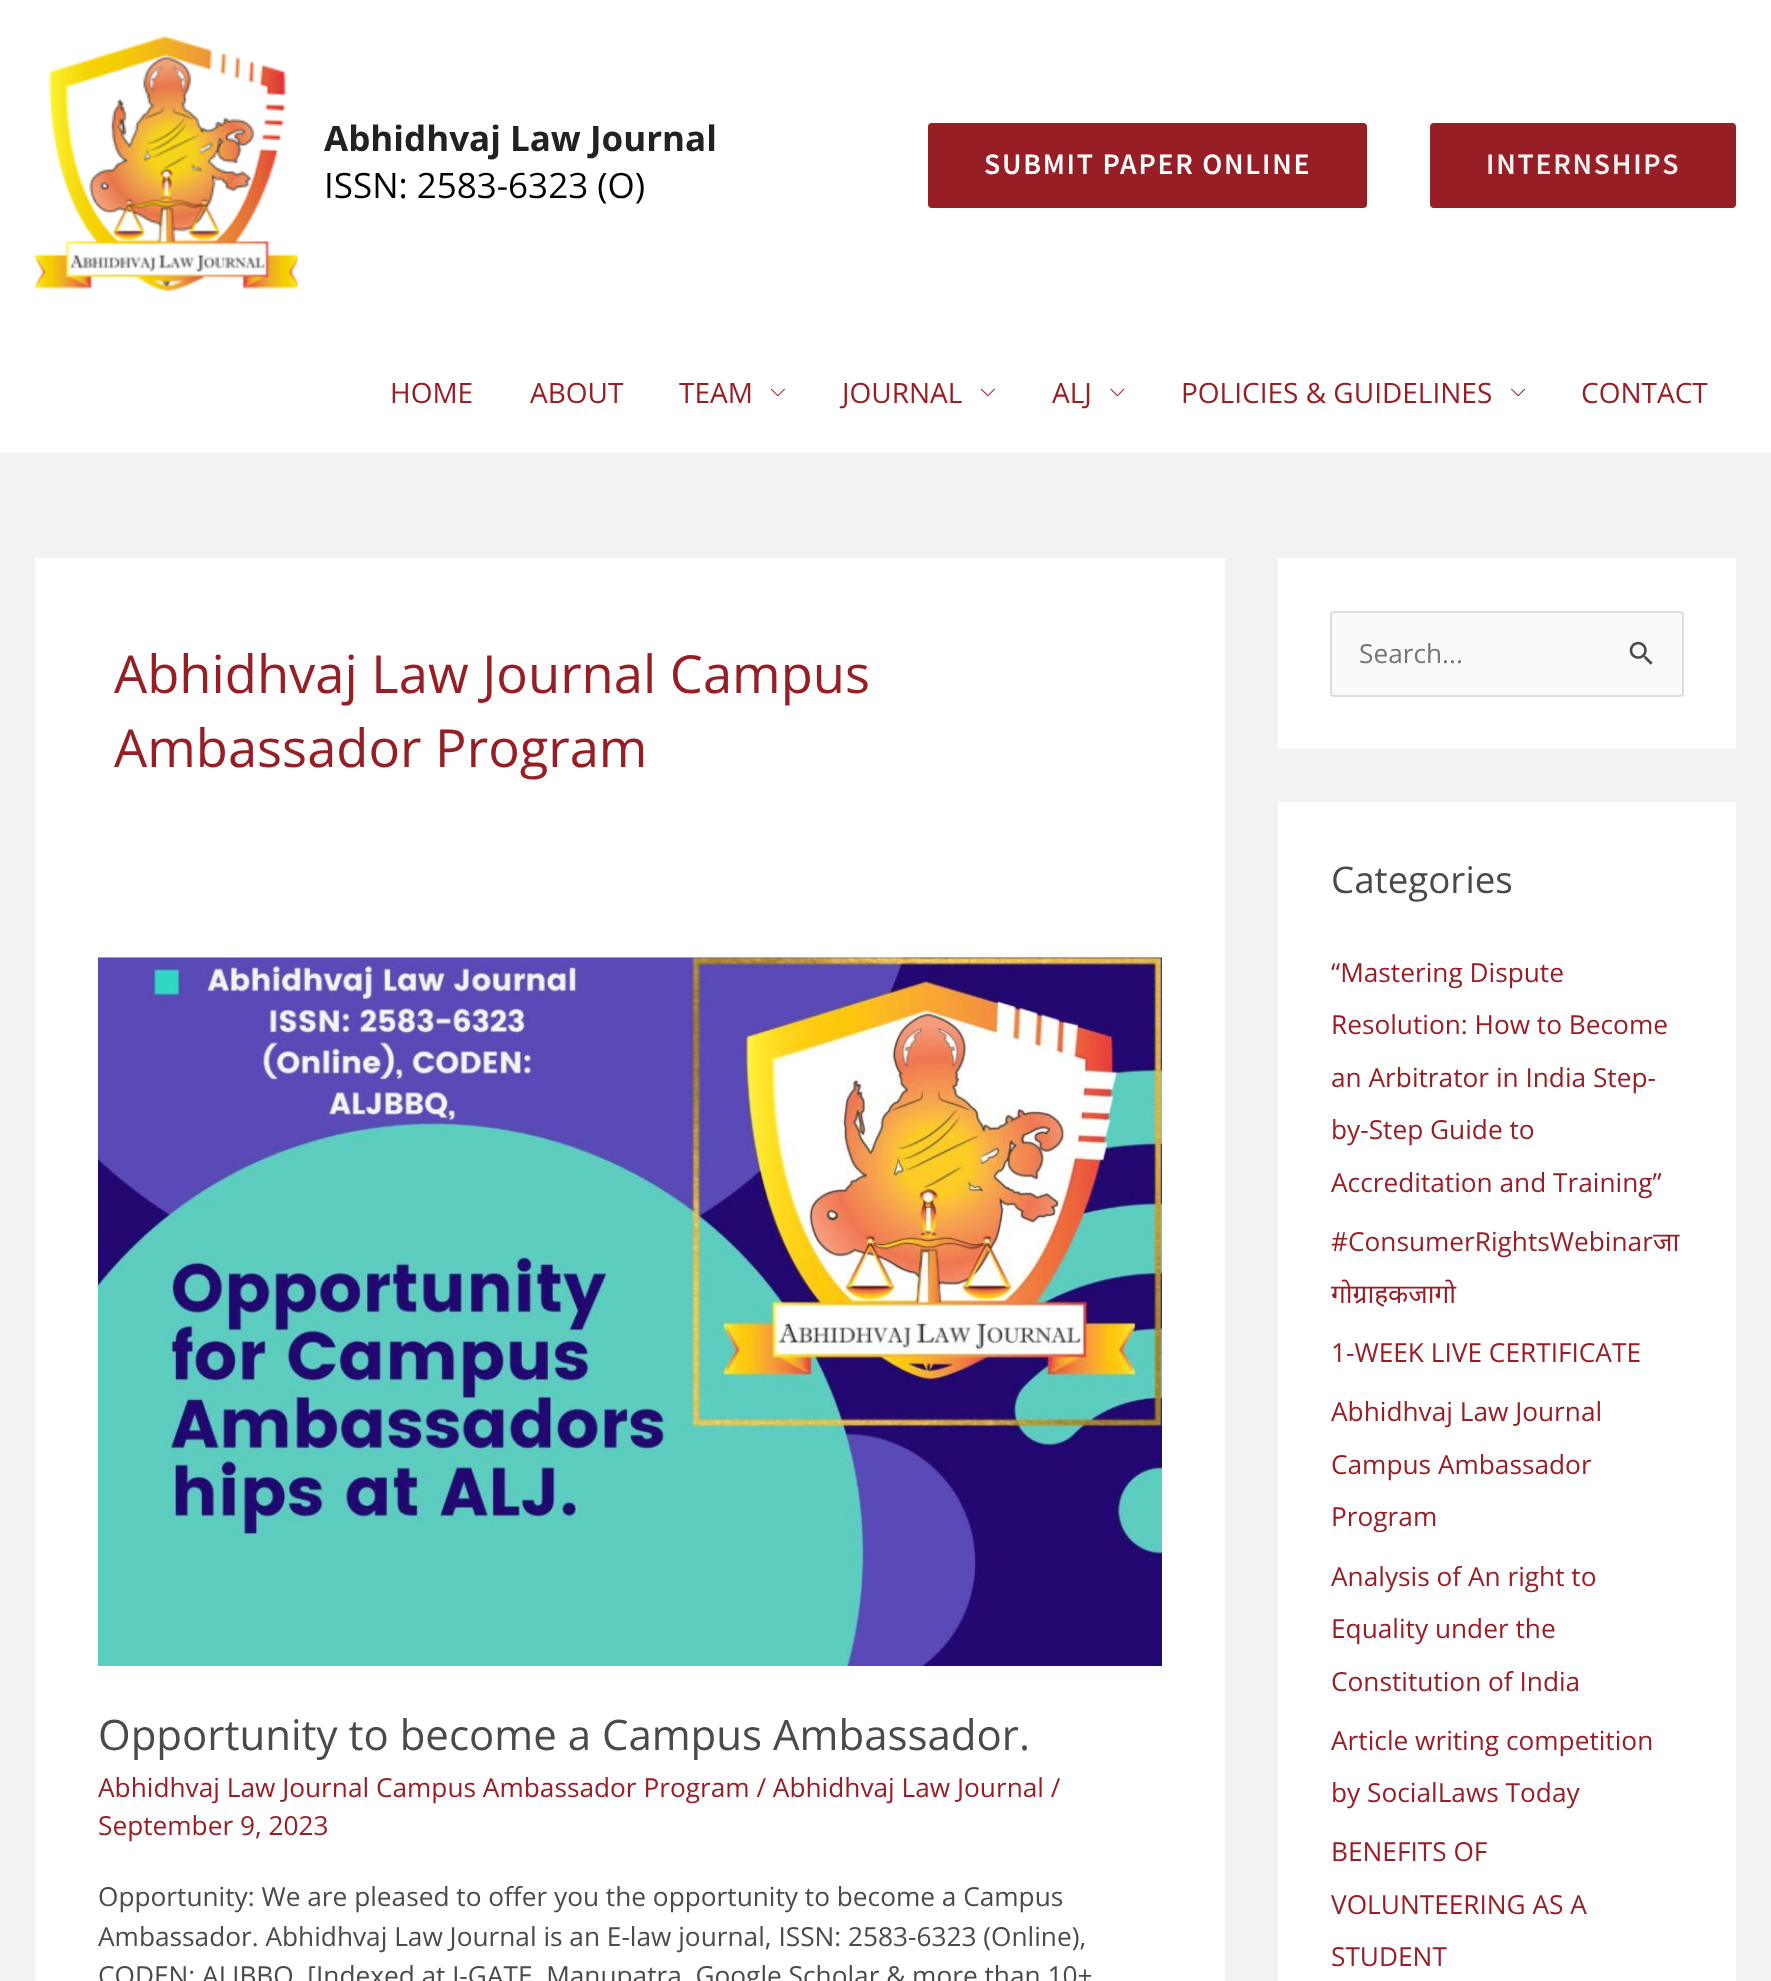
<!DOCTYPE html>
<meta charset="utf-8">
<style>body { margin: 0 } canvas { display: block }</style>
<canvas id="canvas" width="1771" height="1981"></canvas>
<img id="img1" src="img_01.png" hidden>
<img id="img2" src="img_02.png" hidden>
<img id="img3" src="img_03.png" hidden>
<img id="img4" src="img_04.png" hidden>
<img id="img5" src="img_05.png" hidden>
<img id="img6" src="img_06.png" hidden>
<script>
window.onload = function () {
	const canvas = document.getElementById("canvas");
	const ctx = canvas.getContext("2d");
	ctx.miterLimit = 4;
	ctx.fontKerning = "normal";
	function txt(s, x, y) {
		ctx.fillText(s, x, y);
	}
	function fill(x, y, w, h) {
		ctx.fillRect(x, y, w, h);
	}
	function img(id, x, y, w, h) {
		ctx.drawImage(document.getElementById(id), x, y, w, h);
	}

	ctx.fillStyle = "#F2F2F2";
	fill(0, 0, 1771, 1981);
	ctx.fillStyle = "#FFFFFF";
	fill(0, 0, 1771, 453);
	img("img1", 35, 36, 263, 255);
	ctx.fillStyle = "#981E25";
	ctx.beginPath();
	ctx.roundRect(929, 124, 437, 83, 3);
	ctx.fill();
	ctx.strokeStyle = "#981E25";
	ctx.lineWidth = 2;
	ctx.stroke();
	ctx.beginPath();
	ctx.roundRect(1431, 124, 304, 83, 3);
	ctx.fill();
	ctx.stroke();
	img("img2", 770, 388, 15, 9);
	img("img2", 980, 388, 15, 9);
	img("img3", 1110, 388, 15, 9);
	img("img4", 1511, 388, 15, 9);
	ctx.fillStyle = "#FFFFFF";
	fill(35, 558, 1190, 1423);
	img("img5", 98, 957, 1064, 709);
	fill(1278, 558, 458, 191);
	ctx.fillStyle = "#FAFAFA";
	ctx.beginPath();
	ctx.roundRect(1331, 612, 352, 84, 3);
	ctx.fill();
	ctx.strokeStyle = "#DDDDDD";
	ctx.stroke();
	img("img6", 1629, 641, 24, 24);
	ctx.fillStyle = "#FFFFFF";
	fill(1278, 802, 458, 1179);
	ctx.font = "bold 35px Open Sans";
	ctx.fillStyle = "#222222";
	txt("Abhidhvaj Law Journal", 324, 151);
	ctx.font = "35px Open Sans";
	ctx.fillStyle = "#000000";
	txt("ISSN: 2583-6323 (O)", 324, 198);
	ctx.letterSpacing = "1.75px";
	ctx.font = "600 29.75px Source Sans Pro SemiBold";
	ctx.fillStyle = "#FFFFFF";
	txt("SUBMIT PAPER ONLINE", 984, 174);
	ctx.fillStyle = "#F2F2F2";
	txt("INTERNSHIPS", 1486, 174);
	ctx.letterSpacing = "0px";
	ctx.font = "28px Open Sans";
	ctx.fillStyle = "#981E25";
	txt("HOME", 390, 403);
	txt("ABOUT", 530, 403);
	txt("TEAM", 679, 403);
	txt("JOURNAL", 842, 403);
	txt("ALJ", 1052, 403);
	txt("POLICIES & GUIDELINES", 1181, 403);
	txt("CONTACT", 1581, 403);
	ctx.font = "52.5px Open Sans";
	txt("Abhidhvaj Law Journal Campus", 114, 693);
	txt("Ambassador Program", 114, 767);
	ctx.font = "42px Open Sans";
	ctx.fillStyle = "#4A4A4A";
	txt("Opportunity to become a Campus Ambassador.", 98, 1750);
	ctx.font = "26.25px Open Sans";
	ctx.fillStyle = "#981E25";
	txt("Abhidhvaj Law Journal Campus Ambassador Program / Abhidhvaj Law Journal /", 98, 1797);
	txt("September 9, 2023", 98, 1835);
	ctx.fillStyle = "#4A4A4A";
	txt("Opportunity: We are pleased to offer you the opportunity to become a Campus", 98, 1906);
	txt("Ambassador. Abhidhvaj Law Journal is an E-law journal, ISSN: 2583-6323 (Online),", 98, 1946);
	txt("CODEN: ALJBBQ, [Indexed at J-GATE, Manupatra, Google Scholar & more than 10+", 98, 1985);
	ctx.fillStyle = "#757575";
	txt("Search...", 1359, 663);
	ctx.font = "36.75px Open Sans";
	ctx.fillStyle = "#4A4A4A";
	txt("Categories", 1331, 893);
	ctx.font = "26.25px Open Sans";
	ctx.fillStyle = "#981E25";
	txt("“Mastering Dispute", 1331, 982);
	txt("Resolution: How to Become", 1331, 1034);
	txt("an Arbitrator in India Step-", 1331, 1087);
	txt("by-Step Guide to", 1331, 1139);
	txt("Accreditation and Training”", 1331, 1192);
	txt("#ConsumerRightsWebinar", 1331, 1251);
	ctx.font = "26.25px Noto Sans";
	txt("जा", 1653, 1251);
	txt("गोग्राहकजागो", 1331, 1303);
	ctx.font = "26.25px Open Sans";
	txt("1-WEEK LIVE CERTIFICATE", 1331, 1362);
	txt("Abhidhvaj Law Journal", 1331, 1421);
	txt("Campus Ambassador", 1331, 1474);
	txt("Program", 1331, 1526);
	txt("Analysis of An right to", 1331, 1586);
	txt("Equality under the", 1331, 1638);
	txt("Constitution of India", 1331, 1691);
	txt("Article writing competition", 1331, 1750);
	txt("by SocialLaws Today", 1331, 1802);
	txt("BENEFITS OF", 1331, 1861);
	txt("VOLUNTEERING AS A", 1331, 1914);
	txt("STUDENT", 1331, 1966);
};
</script>
